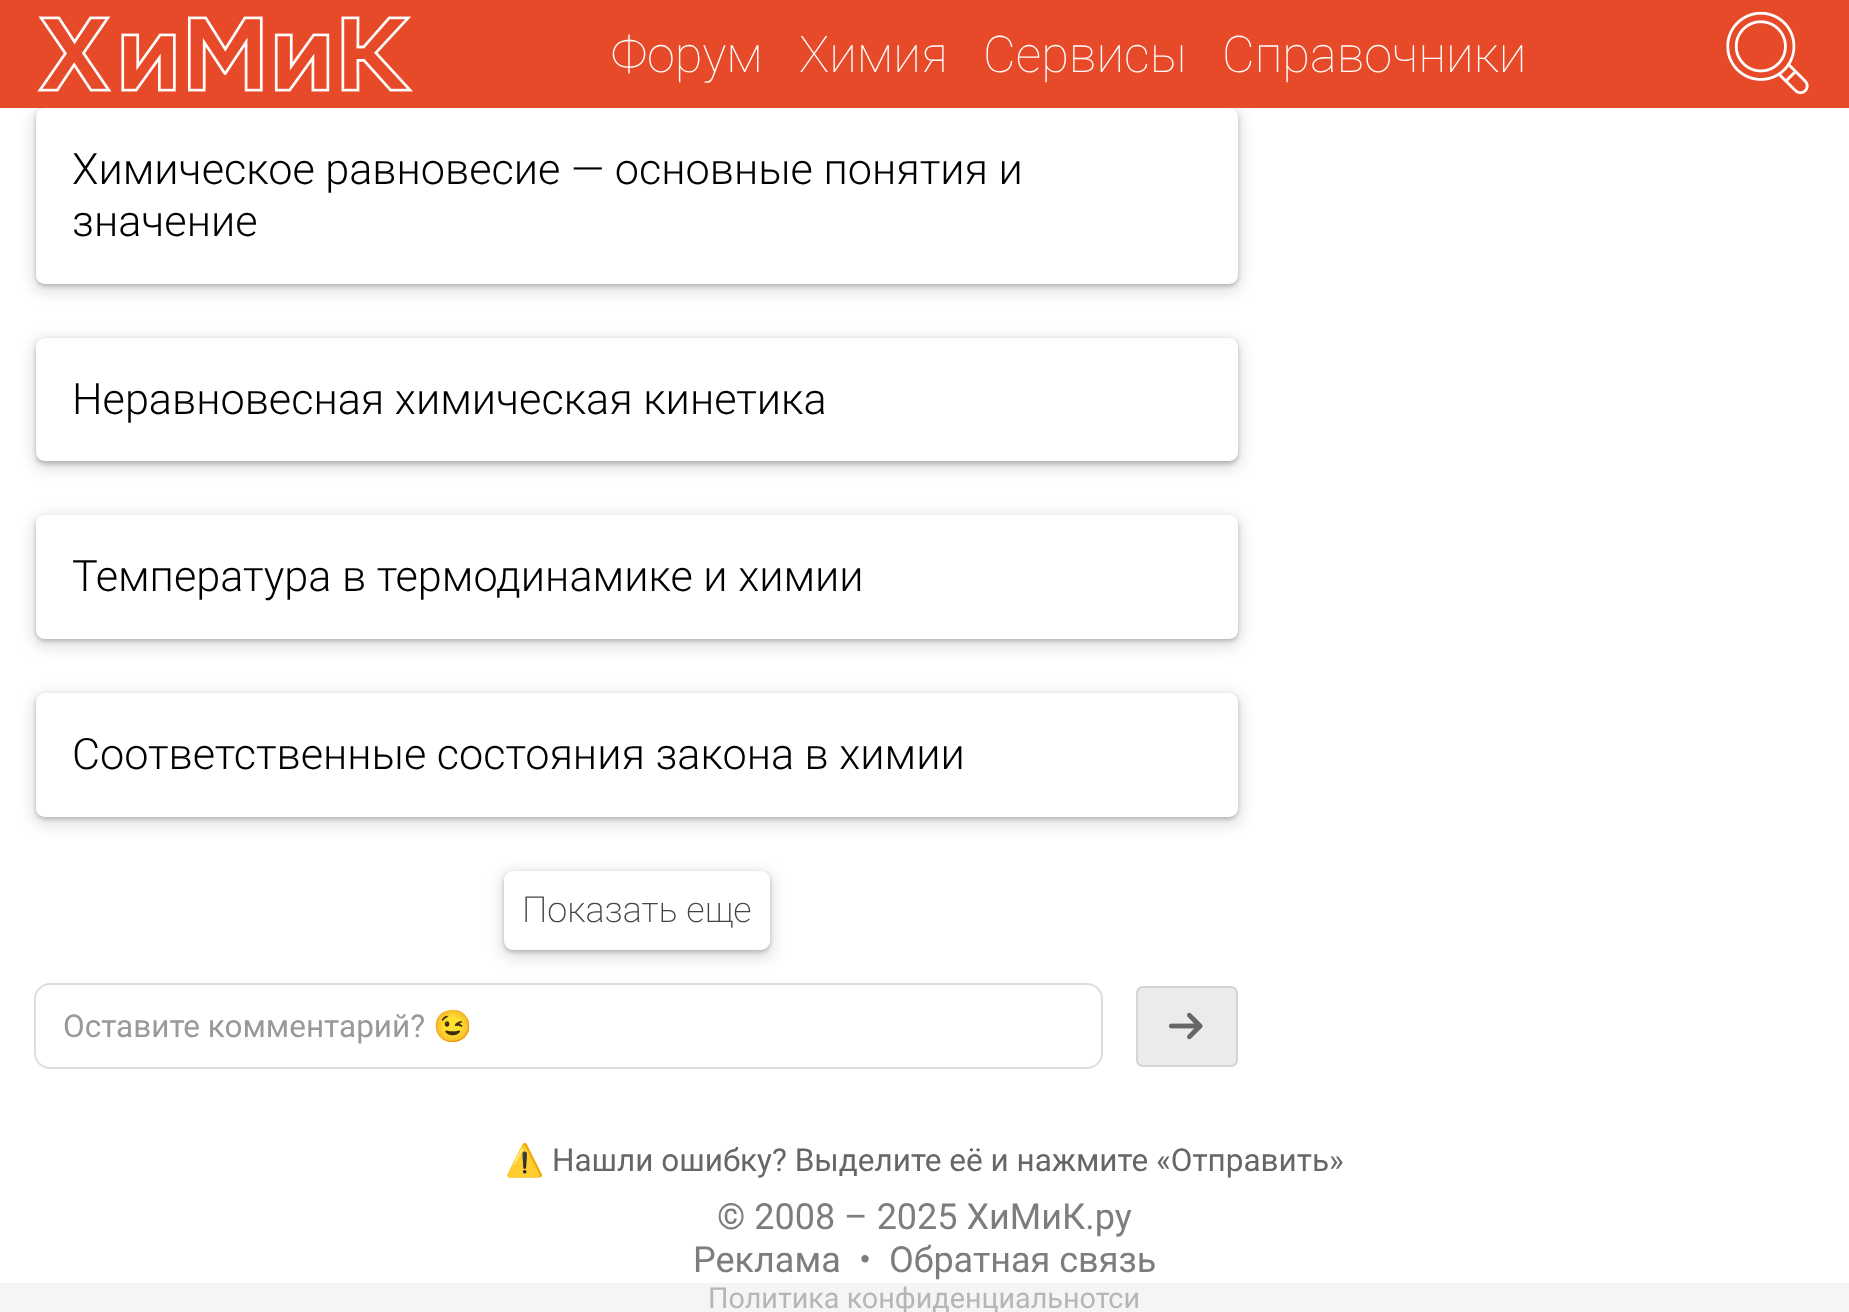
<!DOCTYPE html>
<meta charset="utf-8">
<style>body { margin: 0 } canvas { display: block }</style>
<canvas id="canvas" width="1849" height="1312"></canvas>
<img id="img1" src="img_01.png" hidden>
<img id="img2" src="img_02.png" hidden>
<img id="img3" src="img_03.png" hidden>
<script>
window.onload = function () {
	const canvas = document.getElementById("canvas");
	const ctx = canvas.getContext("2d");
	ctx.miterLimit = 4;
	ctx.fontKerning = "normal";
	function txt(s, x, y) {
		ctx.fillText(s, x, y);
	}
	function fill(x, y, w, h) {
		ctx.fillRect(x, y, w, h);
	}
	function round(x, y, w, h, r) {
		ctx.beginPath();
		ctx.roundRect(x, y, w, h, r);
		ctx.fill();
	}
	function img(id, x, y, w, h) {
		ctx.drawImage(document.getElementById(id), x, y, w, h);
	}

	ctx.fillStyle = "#F5F5F5";
	fill(0, 0, 1849, 1312);
	ctx.fillStyle = "#FFFFFF";
	fill(0, 108, 1849, 1175);
	ctx.save();
	ctx.beginPath();
	ctx.moveTo(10, 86);
	ctx.lineTo(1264, 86);
	ctx.lineTo(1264, 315);
	ctx.lineTo(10, 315);
	ctx.closePath();
	ctx.moveTo(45, 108);
	ctx.lineTo(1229, 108);
	ctx.bezierCurveTo(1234, 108, 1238, 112, 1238, 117);
	ctx.lineTo(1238, 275);
	ctx.bezierCurveTo(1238, 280, 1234, 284, 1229, 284);
	ctx.lineTo(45, 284);
	ctx.bezierCurveTo(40, 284, 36, 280, 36, 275);
	ctx.lineTo(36, 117);
	ctx.bezierCurveTo(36, 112, 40, 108, 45, 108);
	ctx.closePath();
	ctx.clip("evenodd");
	ctx.fillStyle = "rgba(60, 64, 67, 0.15)";
	ctx.filter = "blur(7px)";
	ctx.beginPath();
	ctx.roundRect(32, 108, 1210, 185, 14);
	ctx.fill();
	ctx.filter = "none";
	ctx.restore();
	ctx.save();
	ctx.beginPath();
	ctx.moveTo(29, 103);
	ctx.lineTo(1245, 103);
	ctx.lineTo(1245, 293);
	ctx.lineTo(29, 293);
	ctx.closePath();
	ctx.moveTo(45, 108);
	ctx.lineTo(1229, 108);
	ctx.bezierCurveTo(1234, 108, 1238, 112, 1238, 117);
	ctx.lineTo(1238, 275);
	ctx.bezierCurveTo(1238, 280, 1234, 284, 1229, 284);
	ctx.lineTo(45, 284);
	ctx.bezierCurveTo(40, 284, 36, 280, 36, 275);
	ctx.lineTo(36, 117);
	ctx.bezierCurveTo(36, 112, 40, 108, 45, 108);
	ctx.closePath();
	ctx.clip("evenodd");
	ctx.fillStyle = "rgba(60, 64, 67, 0.3)";
	ctx.filter = "blur(2px)";
	ctx.beginPath();
	ctx.roundRect(36, 110, 1202, 176, 9);
	ctx.fill();
	ctx.filter = "none";
	ctx.restore();
	ctx.fillStyle = "#E74A29";
	fill(0, 0, 1849, 108);
	img("img1", 37, 16, 376, 76);
	img("img2", 1726, 11, 83, 84);
	ctx.save();
	ctx.beginPath();
	ctx.moveTo(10, 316);
	ctx.lineTo(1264, 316);
	ctx.lineTo(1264, 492);
	ctx.lineTo(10, 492);
	ctx.closePath();
	ctx.moveTo(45, 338);
	ctx.lineTo(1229, 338);
	ctx.bezierCurveTo(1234, 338, 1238, 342, 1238, 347);
	ctx.lineTo(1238, 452);
	ctx.bezierCurveTo(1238, 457, 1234, 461, 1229, 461);
	ctx.lineTo(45, 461);
	ctx.bezierCurveTo(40, 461, 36, 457, 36, 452);
	ctx.lineTo(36, 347);
	ctx.bezierCurveTo(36, 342, 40, 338, 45, 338);
	ctx.closePath();
	ctx.clip("evenodd");
	ctx.fillStyle = "rgba(60, 64, 67, 0.15)";
	ctx.filter = "blur(7px)";
	ctx.beginPath();
	ctx.roundRect(32, 338, 1210, 132, 14);
	ctx.fill();
	ctx.filter = "none";
	ctx.restore();
	ctx.save();
	ctx.beginPath();
	ctx.moveTo(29, 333);
	ctx.lineTo(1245, 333);
	ctx.lineTo(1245, 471);
	ctx.lineTo(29, 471);
	ctx.closePath();
	ctx.moveTo(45, 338);
	ctx.lineTo(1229, 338);
	ctx.bezierCurveTo(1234, 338, 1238, 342, 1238, 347);
	ctx.lineTo(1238, 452);
	ctx.bezierCurveTo(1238, 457, 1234, 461, 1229, 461);
	ctx.lineTo(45, 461);
	ctx.bezierCurveTo(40, 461, 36, 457, 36, 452);
	ctx.lineTo(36, 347);
	ctx.bezierCurveTo(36, 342, 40, 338, 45, 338);
	ctx.closePath();
	ctx.clip("evenodd");
	ctx.fillStyle = "rgba(60, 64, 67, 0.3)";
	ctx.filter = "blur(2px)";
	ctx.beginPath();
	ctx.roundRect(36, 340, 1202, 124, 9);
	ctx.fill();
	ctx.filter = "none";
	ctx.restore();
	ctx.save();
	ctx.beginPath();
	ctx.moveTo(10, 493);
	ctx.lineTo(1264, 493);
	ctx.lineTo(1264, 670);
	ctx.lineTo(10, 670);
	ctx.closePath();
	ctx.moveTo(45, 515);
	ctx.lineTo(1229, 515);
	ctx.bezierCurveTo(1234, 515, 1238, 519, 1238, 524);
	ctx.lineTo(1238, 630);
	ctx.bezierCurveTo(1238, 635, 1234, 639, 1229, 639);
	ctx.lineTo(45, 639);
	ctx.bezierCurveTo(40, 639, 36, 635, 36, 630);
	ctx.lineTo(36, 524);
	ctx.bezierCurveTo(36, 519, 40, 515, 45, 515);
	ctx.closePath();
	ctx.clip("evenodd");
	ctx.fillStyle = "rgba(60, 64, 67, 0.15)";
	ctx.filter = "blur(7px)";
	ctx.beginPath();
	ctx.roundRect(32, 515, 1210, 133, 14);
	ctx.fill();
	ctx.filter = "none";
	ctx.restore();
	ctx.save();
	ctx.beginPath();
	ctx.moveTo(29, 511);
	ctx.lineTo(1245, 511);
	ctx.lineTo(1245, 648);
	ctx.lineTo(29, 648);
	ctx.closePath();
	ctx.moveTo(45, 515);
	ctx.lineTo(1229, 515);
	ctx.bezierCurveTo(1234, 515, 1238, 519, 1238, 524);
	ctx.lineTo(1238, 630);
	ctx.bezierCurveTo(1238, 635, 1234, 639, 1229, 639);
	ctx.lineTo(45, 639);
	ctx.bezierCurveTo(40, 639, 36, 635, 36, 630);
	ctx.lineTo(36, 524);
	ctx.bezierCurveTo(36, 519, 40, 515, 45, 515);
	ctx.closePath();
	ctx.clip("evenodd");
	ctx.fillStyle = "rgba(60, 64, 67, 0.3)";
	ctx.filter = "blur(2px)";
	ctx.beginPath();
	ctx.roundRect(36, 518, 1202, 123, 9);
	ctx.fill();
	ctx.filter = "none";
	ctx.restore();
	ctx.save();
	ctx.beginPath();
	ctx.moveTo(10, 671);
	ctx.lineTo(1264, 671);
	ctx.lineTo(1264, 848);
	ctx.lineTo(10, 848);
	ctx.closePath();
	ctx.moveTo(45, 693);
	ctx.lineTo(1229, 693);
	ctx.bezierCurveTo(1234, 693, 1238, 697, 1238, 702);
	ctx.lineTo(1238, 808);
	ctx.bezierCurveTo(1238, 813, 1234, 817, 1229, 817);
	ctx.lineTo(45, 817);
	ctx.bezierCurveTo(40, 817, 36, 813, 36, 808);
	ctx.lineTo(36, 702);
	ctx.bezierCurveTo(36, 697, 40, 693, 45, 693);
	ctx.closePath();
	ctx.clip("evenodd");
	ctx.fillStyle = "rgba(60, 64, 67, 0.15)";
	ctx.filter = "blur(7px)";
	ctx.beginPath();
	ctx.roundRect(32, 693, 1210, 133, 14);
	ctx.fill();
	ctx.filter = "none";
	ctx.restore();
	ctx.save();
	ctx.beginPath();
	ctx.moveTo(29, 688);
	ctx.lineTo(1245, 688);
	ctx.lineTo(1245, 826);
	ctx.lineTo(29, 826);
	ctx.closePath();
	ctx.moveTo(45, 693);
	ctx.lineTo(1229, 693);
	ctx.bezierCurveTo(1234, 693, 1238, 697, 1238, 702);
	ctx.lineTo(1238, 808);
	ctx.bezierCurveTo(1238, 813, 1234, 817, 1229, 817);
	ctx.lineTo(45, 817);
	ctx.bezierCurveTo(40, 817, 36, 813, 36, 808);
	ctx.lineTo(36, 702);
	ctx.bezierCurveTo(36, 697, 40, 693, 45, 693);
	ctx.closePath();
	ctx.clip("evenodd");
	ctx.fillStyle = "rgba(60, 64, 67, 0.3)";
	ctx.filter = "blur(2px)";
	ctx.beginPath();
	ctx.roundRect(36, 695, 1202, 124, 9);
	ctx.fill();
	ctx.filter = "none";
	ctx.restore();
	ctx.fillStyle = "rgba(60, 64, 67, 0.15)";
	ctx.filter = "blur(7px)";
	ctx.beginPath();
	ctx.roundRect(500, 871, 274, 88, 14);
	ctx.fill();
	ctx.filter = "none";
	ctx.fillStyle = "rgba(60, 64, 67, 0.3)";
	ctx.filter = "blur(2px)";
	ctx.beginPath();
	ctx.roundRect(504, 873, 266, 79, 9);
	ctx.fill();
	ctx.filter = "none";
	ctx.fillStyle = "#FFFFFF";
	round(504, 871, 266, 79, 9);
	ctx.beginPath();
	ctx.roundRect(35, 984, 1067, 84, 15);
	ctx.strokeStyle = "#DDDDDD";
	ctx.lineWidth = 2;
	ctx.stroke();
	ctx.fillStyle = "#EBEBEB";
	round(1136, 986, 102, 81, 7);
	img("img3", 1169, 1012, 34, 28);
	ctx.beginPath();
	ctx.roundRect(1137, 987, 100, 79, 6);
	ctx.strokeStyle = "#D4D4D4";
	ctx.stroke();
	ctx.font = "100 50.5px Roboto";
	ctx.fillStyle = "#FFFFFF";
	txt("Форум", 611, 72);
	txt("Химия", 799, 72);
	txt("Сервисы", 983, 72);
	txt("Справочники", 1222, 72);
	ctx.font = "300 43.2px Roboto";
	ctx.fillStyle = "#000000";
	txt("Химическое равновесие — основные понятия и", 72, 184);
	txt("значение", 72, 236);
	txt("Неравновесная химическая кинетика", 72, 414);
	txt("Температура в термодинамике и химии", 72, 591);
	txt("Соответственные состояния закона в химии", 72, 769);
	ctx.font = "200 36px Roboto";
	ctx.fillStyle = "#444444";
	txt("Показать еще", 522, 922);
	ctx.font = "31.5px Roboto";
	ctx.fillStyle = "#999999";
	txt("Оставите комментарий?", 63, 1037);
	ctx.font = "31.5px Noto Color Emoji";
	txt("😉", 433, 1037);
	ctx.fillStyle = "#666666";
	txt("⚠️", 505, 1171);
	ctx.font = "31.5px Roboto";
	txt("Нашли ошибку? Выделите её и нажмите «Отправить»", 552, 1171);
	ctx.font = "36px Roboto";
	ctx.fillStyle = "#7E7C7C";
	txt("© 2008 – 2025 ХиМиК.ру", 717, 1229);
	txt("Реклама", 693, 1272);
	txt("•", 859, 1272);
	txt("Обратная связь", 889, 1272);
	ctx.font = "28.75px Roboto";
	ctx.fillStyle = "#B6B6B6";
	txt("Политика конфиденциальнотси", 708, 1308);
};
</script>
